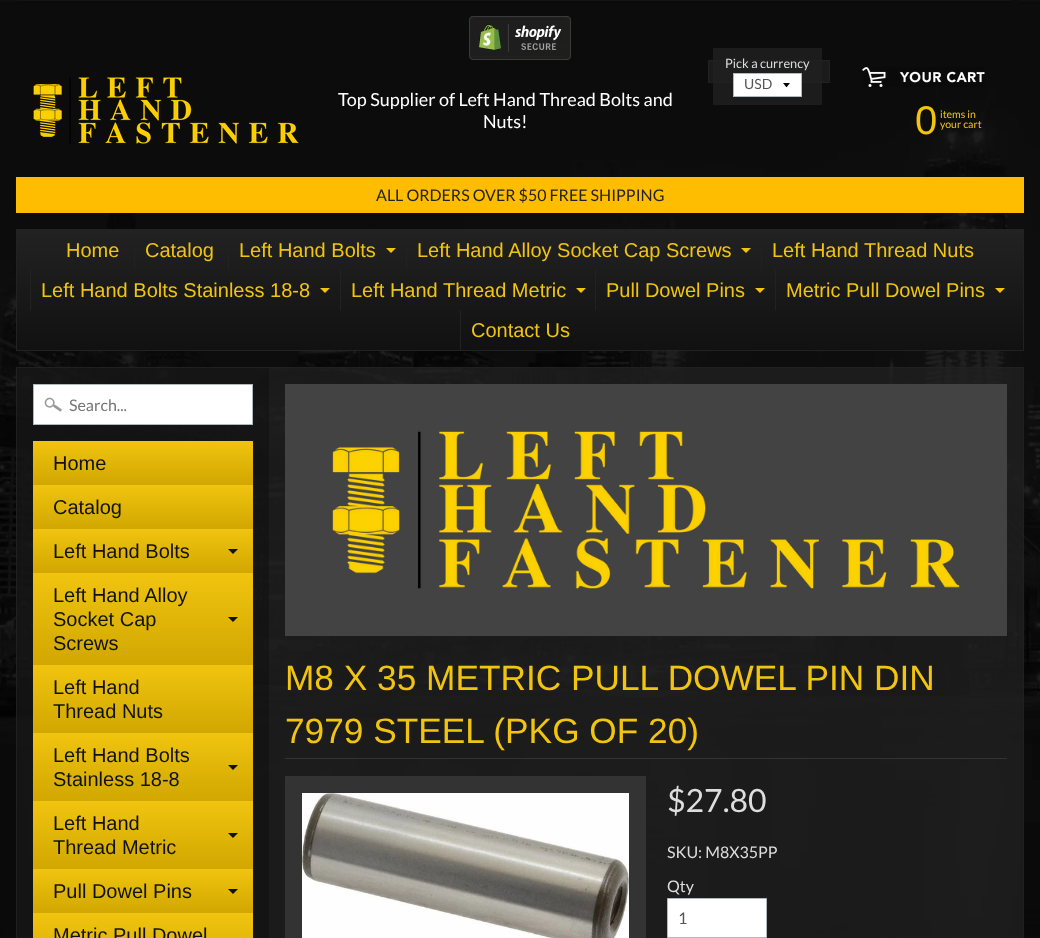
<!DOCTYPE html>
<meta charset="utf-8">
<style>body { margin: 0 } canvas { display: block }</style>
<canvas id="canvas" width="1040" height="938"></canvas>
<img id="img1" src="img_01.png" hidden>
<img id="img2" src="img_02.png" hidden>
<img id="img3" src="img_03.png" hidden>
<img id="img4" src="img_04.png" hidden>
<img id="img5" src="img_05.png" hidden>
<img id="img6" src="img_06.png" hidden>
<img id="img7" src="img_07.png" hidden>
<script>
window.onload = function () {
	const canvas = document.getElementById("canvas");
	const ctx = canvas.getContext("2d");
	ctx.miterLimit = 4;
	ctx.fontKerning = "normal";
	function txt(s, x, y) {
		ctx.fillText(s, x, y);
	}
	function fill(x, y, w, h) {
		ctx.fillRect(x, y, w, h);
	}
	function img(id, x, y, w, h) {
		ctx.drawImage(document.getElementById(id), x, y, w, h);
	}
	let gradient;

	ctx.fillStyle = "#FFFFFF";
	fill(0, 0, 1040, 938);
	img("img1", 0, 0, 1040, 938);
	ctx.fillStyle = "#1B1B1B";
	ctx.beginPath();
	ctx.rect(708.5, 60.5, 121, 22);
	ctx.fill();
	ctx.strokeStyle = "#222222";
	ctx.stroke();
	ctx.fillStyle = "rgba(34, 34, 34, 0.75)";
	fill(713, 48, 109, 57);
	ctx.fillStyle = "#FFFFFF";
	fill(734, 74, 67, 22);
	ctx.fillStyle = "#000000";
	ctx.beginPath();
	ctx.moveTo(783, 83);
	ctx.bezierCurveTo(787.5, 88.5, 785.5, 88.5, 790, 83);
	ctx.closePath();
	ctx.fill();
	ctx.strokeStyle = "#B2B9BD";
	ctx.strokeRect(733.5, 73.5, 68, 23);
	img("img2", 469, 16, 102, 44);
	img("img3", 33, 77, 266, 67);
	img("img4", 862, 67, 123, 20);
	ctx.fillStyle = "#FFBD00";
	fill(16, 177, 1008, 36);
	gradient = ctx.createLinearGradient(520, 230, 520, 350);
	gradient.addColorStop(0, "#222222");
	gradient.addColorStop(1, "#111111");
	ctx.fillStyle = gradient;
	fill(17, 230, 1006, 120);
	ctx.strokeStyle = "#222222";
	ctx.strokeRect(16.5, 229.5, 1007, 121);
	ctx.fillStyle = "#222222";
	fill(134, 248, 1, 22);
	fill(228, 248, 1, 22);
	ctx.fillStyle = "#F1C40F";
	ctx.beginPath();
	ctx.moveTo(386, 248);
	ctx.lineTo(396, 248);
	ctx.lineTo(391, 253);
	ctx.closePath();
	ctx.fill();
	ctx.fillStyle = "#222222";
	fill(406, 248, 1, 22);
	ctx.fillStyle = "#F1C40F";
	ctx.beginPath();
	ctx.moveTo(741, 248);
	ctx.lineTo(751, 248);
	ctx.lineTo(746, 253);
	ctx.closePath();
	ctx.fill();
	ctx.fillStyle = "#222222";
	fill(761, 248, 1, 22);
	fill(30, 270, 1, 40);
	ctx.fillStyle = "#F1C40F";
	ctx.beginPath();
	ctx.moveTo(320, 288);
	ctx.lineTo(330, 288);
	ctx.lineTo(325, 293);
	ctx.closePath();
	ctx.fill();
	ctx.fillStyle = "#222222";
	fill(340, 270, 1, 40);
	ctx.fillStyle = "#F1C40F";
	ctx.beginPath();
	ctx.moveTo(576, 288);
	ctx.lineTo(586, 288);
	ctx.lineTo(581, 293);
	ctx.closePath();
	ctx.fill();
	ctx.fillStyle = "#222222";
	fill(595, 270, 1, 40);
	ctx.fillStyle = "#F1C40F";
	ctx.beginPath();
	ctx.moveTo(755, 288);
	ctx.lineTo(765, 288);
	ctx.lineTo(760, 293);
	ctx.closePath();
	ctx.fill();
	ctx.fillStyle = "#222222";
	fill(775, 270, 1, 40);
	ctx.fillStyle = "#F1C40F";
	ctx.beginPath();
	ctx.moveTo(995, 288);
	ctx.lineTo(1005, 288);
	ctx.lineTo(1000, 293);
	ctx.closePath();
	ctx.fill();
	ctx.fillStyle = "#222222";
	fill(460, 310, 1, 40);
	ctx.fillStyle = "rgba(34, 34, 34, 0.75)";
	fill(16, 367, 1008, 571);
	ctx.strokeStyle = "rgba(34, 34, 34, 0.7)";
	ctx.strokeRect(16.5, 367.5, 1007, 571);
	ctx.fillStyle = "rgba(0, 0, 0, 0.25)";
	fill(17, 368, 252, 570);
	ctx.fillStyle = "#FFFFFF";
	fill(34, 385, 218, 39);
	img("img5", 44, 397, 18, 15);
	ctx.strokeStyle = "#B2B9BD";
	ctx.strokeRect(33.5, 384.5, 219, 40);
	gradient = ctx.createLinearGradient(143, 441, 143, 485);
	gradient.addColorStop(0, "#F1C40F");
	gradient.addColorStop(1, "#D1A701");
	ctx.fillStyle = gradient;
	fill(33, 441, 220, 44);
	gradient = ctx.createLinearGradient(143, 485, 143, 529);
	gradient.addColorStop(0, "#F1C40F");
	gradient.addColorStop(1, "#D1A701");
	ctx.fillStyle = gradient;
	fill(33, 485, 220, 44);
	gradient = ctx.createLinearGradient(143, 529, 143, 573);
	gradient.addColorStop(0, "#F1C40F");
	gradient.addColorStop(1, "#D1A701");
	ctx.fillStyle = gradient;
	fill(33, 529, 220, 44);
	ctx.fillStyle = "#111111";
	ctx.beginPath();
	ctx.moveTo(228, 549);
	ctx.lineTo(238, 549);
	ctx.lineTo(233, 554);
	ctx.closePath();
	ctx.fill();
	gradient = ctx.createLinearGradient(143, 573, 143, 665);
	gradient.addColorStop(0, "#F1C40F");
	gradient.addColorStop(1, "#D1A701");
	ctx.fillStyle = gradient;
	fill(33, 573, 220, 92);
	ctx.fillStyle = "#111111";
	ctx.beginPath();
	ctx.moveTo(228, 617);
	ctx.lineTo(238, 617);
	ctx.lineTo(233, 622);
	ctx.closePath();
	ctx.fill();
	gradient = ctx.createLinearGradient(143, 665, 143, 733);
	gradient.addColorStop(0, "#F1C40F");
	gradient.addColorStop(1, "#D1A701");
	ctx.fillStyle = gradient;
	fill(33, 665, 220, 68);
	gradient = ctx.createLinearGradient(143, 733, 143, 801);
	gradient.addColorStop(0, "#F1C40F");
	gradient.addColorStop(1, "#D1A701");
	ctx.fillStyle = gradient;
	fill(33, 733, 220, 68);
	ctx.fillStyle = "#111111";
	ctx.beginPath();
	ctx.moveTo(228, 765);
	ctx.lineTo(238, 765);
	ctx.lineTo(233, 770);
	ctx.closePath();
	ctx.fill();
	gradient = ctx.createLinearGradient(143, 801, 143, 869);
	gradient.addColorStop(0, "#F1C40F");
	gradient.addColorStop(1, "#D1A701");
	ctx.fillStyle = gradient;
	fill(33, 801, 220, 68);
	ctx.fillStyle = "#111111";
	ctx.beginPath();
	ctx.moveTo(228, 833);
	ctx.lineTo(238, 833);
	ctx.lineTo(233, 838);
	ctx.closePath();
	ctx.fill();
	gradient = ctx.createLinearGradient(143, 869, 143, 913);
	gradient.addColorStop(0, "#F1C40F");
	gradient.addColorStop(1, "#D1A701");
	ctx.fillStyle = gradient;
	fill(33, 869, 220, 44);
	ctx.fillStyle = "#111111";
	ctx.beginPath();
	ctx.moveTo(228, 889);
	ctx.lineTo(238, 889);
	ctx.lineTo(233, 894);
	ctx.closePath();
	ctx.fill();
	gradient = ctx.createLinearGradient(143, 913, 143, 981);
	gradient.addColorStop(0, "#F1C40F");
	gradient.addColorStop(1, "#D1A701");
	ctx.fillStyle = gradient;
	fill(33, 913, 220, 25);
	ctx.fillStyle = "#434343";
	fill(285, 384, 722, 252);
	img("img6", 332, 431, 628, 158);
	ctx.fillStyle = "#333333";
	fill(285, 758, 722, 1);
	fill(285, 776, 361, 162);
	img("img7", 302, 793, 327, 145);
	ctx.fillStyle = "#FFFFFF";
	ctx.beginPath();
	ctx.rect(667.5, 898.5, 99, 39);
	ctx.fill();
	ctx.stroke();
	ctx.font = "12.75px Lato";
	ctx.fillStyle = "#DDDDDD";
	txt("Pick a currency", 725, 68);
	ctx.font = "14px Lato";
	ctx.fillStyle = "#555555";
	txt("USD", 744, 89);
	ctx.font = "18px Lato";
	ctx.fillStyle = "#FFFFFF";
	txt("Top Supplier of Left Hand Thread Bolts and", 338, 106);
	txt("Nuts!", 483, 128);
	ctx.font = "40px Liberation Sans";
	ctx.fillStyle = "#F1C40F";
	txt("0", 915, 134);
	ctx.font = "10.5px Lato";
	txt("items in", 940, 118);
	txt("your cart", 940, 128);
	ctx.font = "16px Lato";
	ctx.fillStyle = "#222222";
	txt("ALL ORDERS OVER $50 FREE SHIPPING", 376, 201);
	ctx.font = "20px Liberation Sans";
	ctx.fillStyle = "#F1C40F";
	txt("Home", 66, 257);
	txt("Catalog", 145, 257);
	txt("Left Hand Bolts", 239, 257);
	txt("Left Hand Alloy Socket Cap Screws", 417, 257);
	txt("Left Hand Thread Nuts", 772, 257);
	txt("Left Hand Bolts Stainless 18-8", 41, 297);
	txt("Left Hand Thread Metric", 351, 297);
	txt("Pull Dowel Pins", 606, 297);
	txt("Metric Pull Dowel Pins", 786, 297);
	txt("Contact Us", 471, 337);
	ctx.font = "16px Lato";
	ctx.fillStyle = "#757575";
	txt("Search...", 69, 411);
	ctx.font = "20px Liberation Sans";
	ctx.fillStyle = "#111111";
	txt("Home", 53, 470);
	txt("Catalog", 53, 514);
	txt("Left Hand Bolts", 53, 558);
	txt("Left Hand Alloy", 53, 602);
	txt("Socket Cap", 53, 626);
	txt("Screws", 53, 650);
	txt("Left Hand", 53, 694);
	txt("Thread Nuts", 53, 718);
	txt("Left Hand Bolts", 53, 762);
	txt("Stainless 18-8", 53, 786);
	txt("Left Hand", 53, 830);
	txt("Thread Metric", 53, 854);
	txt("Pull Dowel Pins", 53, 898);
	txt("Metric Pull Dowel", 53, 942);
	ctx.font = "35.25px Liberation Sans";
	ctx.fillStyle = "#F1C40F";
	txt("M8 X 35 METRIC PULL DOWEL PIN DIN", 285, 690);
	txt("7979 STEEL (PKG OF 20)", 285, 743);
	ctx.font = "32px Lato";
	ctx.fillStyle = "#DDDDDD";
	txt("$27.80", 667, 812);
	ctx.font = "16px Lato";
	txt("SKU: M8X35PP", 667, 858);
	txt("Qty", 667, 892);
	ctx.fillStyle = "#555555";
	txt("1", 678, 924);
};
</script>
